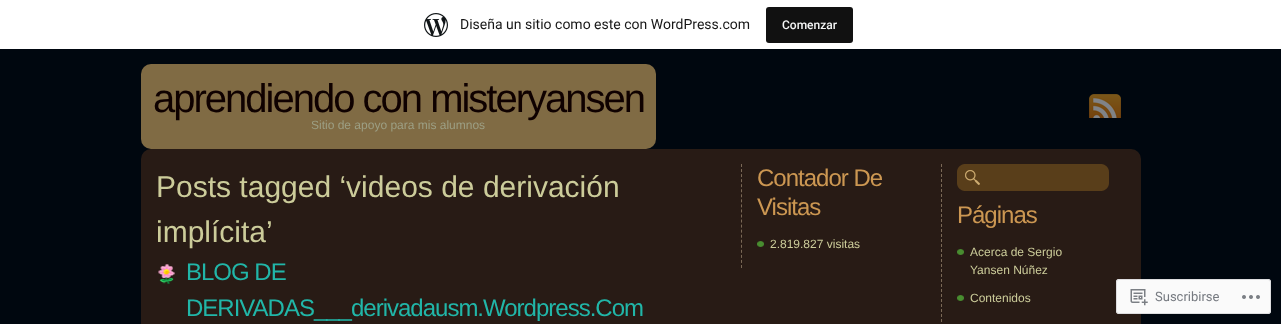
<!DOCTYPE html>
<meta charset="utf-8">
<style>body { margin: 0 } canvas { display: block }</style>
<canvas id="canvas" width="1281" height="324"></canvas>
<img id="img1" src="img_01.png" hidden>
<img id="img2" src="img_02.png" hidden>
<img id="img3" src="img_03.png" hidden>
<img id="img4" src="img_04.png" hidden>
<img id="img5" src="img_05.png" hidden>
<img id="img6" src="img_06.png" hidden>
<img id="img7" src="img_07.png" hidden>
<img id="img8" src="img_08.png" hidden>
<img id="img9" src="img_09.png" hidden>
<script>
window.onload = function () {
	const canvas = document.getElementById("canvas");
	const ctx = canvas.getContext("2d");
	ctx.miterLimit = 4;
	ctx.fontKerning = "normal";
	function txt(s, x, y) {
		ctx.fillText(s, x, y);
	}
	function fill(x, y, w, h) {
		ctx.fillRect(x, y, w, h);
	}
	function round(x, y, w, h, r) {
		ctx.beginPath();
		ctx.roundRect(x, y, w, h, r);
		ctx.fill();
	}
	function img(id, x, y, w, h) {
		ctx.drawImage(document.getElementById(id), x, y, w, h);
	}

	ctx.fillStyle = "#00070F";
	fill(0, 0, 1281, 324);
	ctx.fillStyle = "#FFFFFF";
	fill(0, 0, 1281, 49);
	img("img1", 424, 13, 24, 24);
	ctx.fillStyle = "#111111";
	round(766, 7, 87, 36, 3);
	img("img2", 141, 64, 515, 85);
	img("img3", 1089, 94, 32, 24);
	img("img4", 141, 149, 1000, 175);
	img("img5", 158, 264, 17, 20);
	ctx.beginPath();
	ctx.moveTo(741.5, 164);
	ctx.lineTo(741.5, 268);
	ctx.strokeStyle = "#7A6856";
	ctx.setLineDash([3, 2.05]);
	ctx.stroke();
	img("img6", 757, 241, 7, 6);
	ctx.beginPath();
	ctx.moveTo(941.5, 164);
	ctx.lineTo(941.5, 322);
	ctx.setLineDash([3, 2]);
	ctx.stroke();
	img("img7", 957, 164, 152, 27);
	img("img6", 957, 249, 7, 6);
	img("img6", 957, 295, 7, 6);
	ctx.fillStyle = "rgba(255, 255, 255, 0.98)";
	round(1116, 279, 155, 35, 3);
	ctx.beginPath();
	ctx.roundRect(1116.5, 279.5, 154, 34, 2.5);
	ctx.strokeStyle = "rgba(220, 220, 222, 0.98)";
	ctx.setLineDash([]);
	ctx.stroke();
	img("img8", 1130, 289, 18, 17);
	img("img9", 1242, 295, 18, 4);
	ctx.font = "14px Roboto";
	ctx.fillStyle = "#171717";
	txt("Diseña un sitio como este con WordPress.com", 460, 29);
	ctx.font = "500 12px Roboto";
	ctx.fillStyle = "#F6F7F7";
	txt("Comenzar", 782, 29);
	ctx.letterSpacing = "-2px";
	ctx.font = "40px Liberation Sans";
	ctx.fillStyle = "#0F0100";
	txt("aprendiendo con misteryansen", 153, 112);
	ctx.letterSpacing = "0px";
	ctx.font = "12px Liberation Sans";
	ctx.fillStyle = "#9C9F84";
	txt("Sitio de apoyo para mis alumnos", 311, 129);
	ctx.font = "30px Liberation Sans";
	ctx.fillStyle = "#CCCC9A";
	txt("Posts tagged ‘videos de derivación", 156, 197);
	txt("implícita’", 156, 242);
	ctx.letterSpacing = "-1px";
	ctx.font = "24px Liberation Sans";
	ctx.fillStyle = "#21B6A8";
	txt("BLOG DE", 186, 280);
	txt("DERIVADAS___derivadausm.Wordpress.Com", 186, 316);
	ctx.fillStyle = "#CC9752";
	txt("Contador De", 757, 186);
	txt("Visitas", 757, 215);
	ctx.letterSpacing = "0px";
	ctx.font = "12px Liberation Sans";
	ctx.fillStyle = "#CCCC9A";
	txt("2.819.827 visitas", 770, 248);
	ctx.letterSpacing = "-1px";
	ctx.font = "24px Liberation Sans";
	ctx.fillStyle = "#CC9752";
	txt("Páginas", 957, 223);
	ctx.letterSpacing = "0px";
	ctx.font = "12px Liberation Sans";
	ctx.fillStyle = "#CCCC9A";
	txt("Acerca de Sergio", 970, 256);
	txt("Yansen Núñez", 970, 274);
	txt("Contenidos", 970, 302);
	ctx.font = "13px Roboto";
	ctx.fillStyle = "#767A80";
	txt("Suscribirse", 1155, 301);
};
</script>
